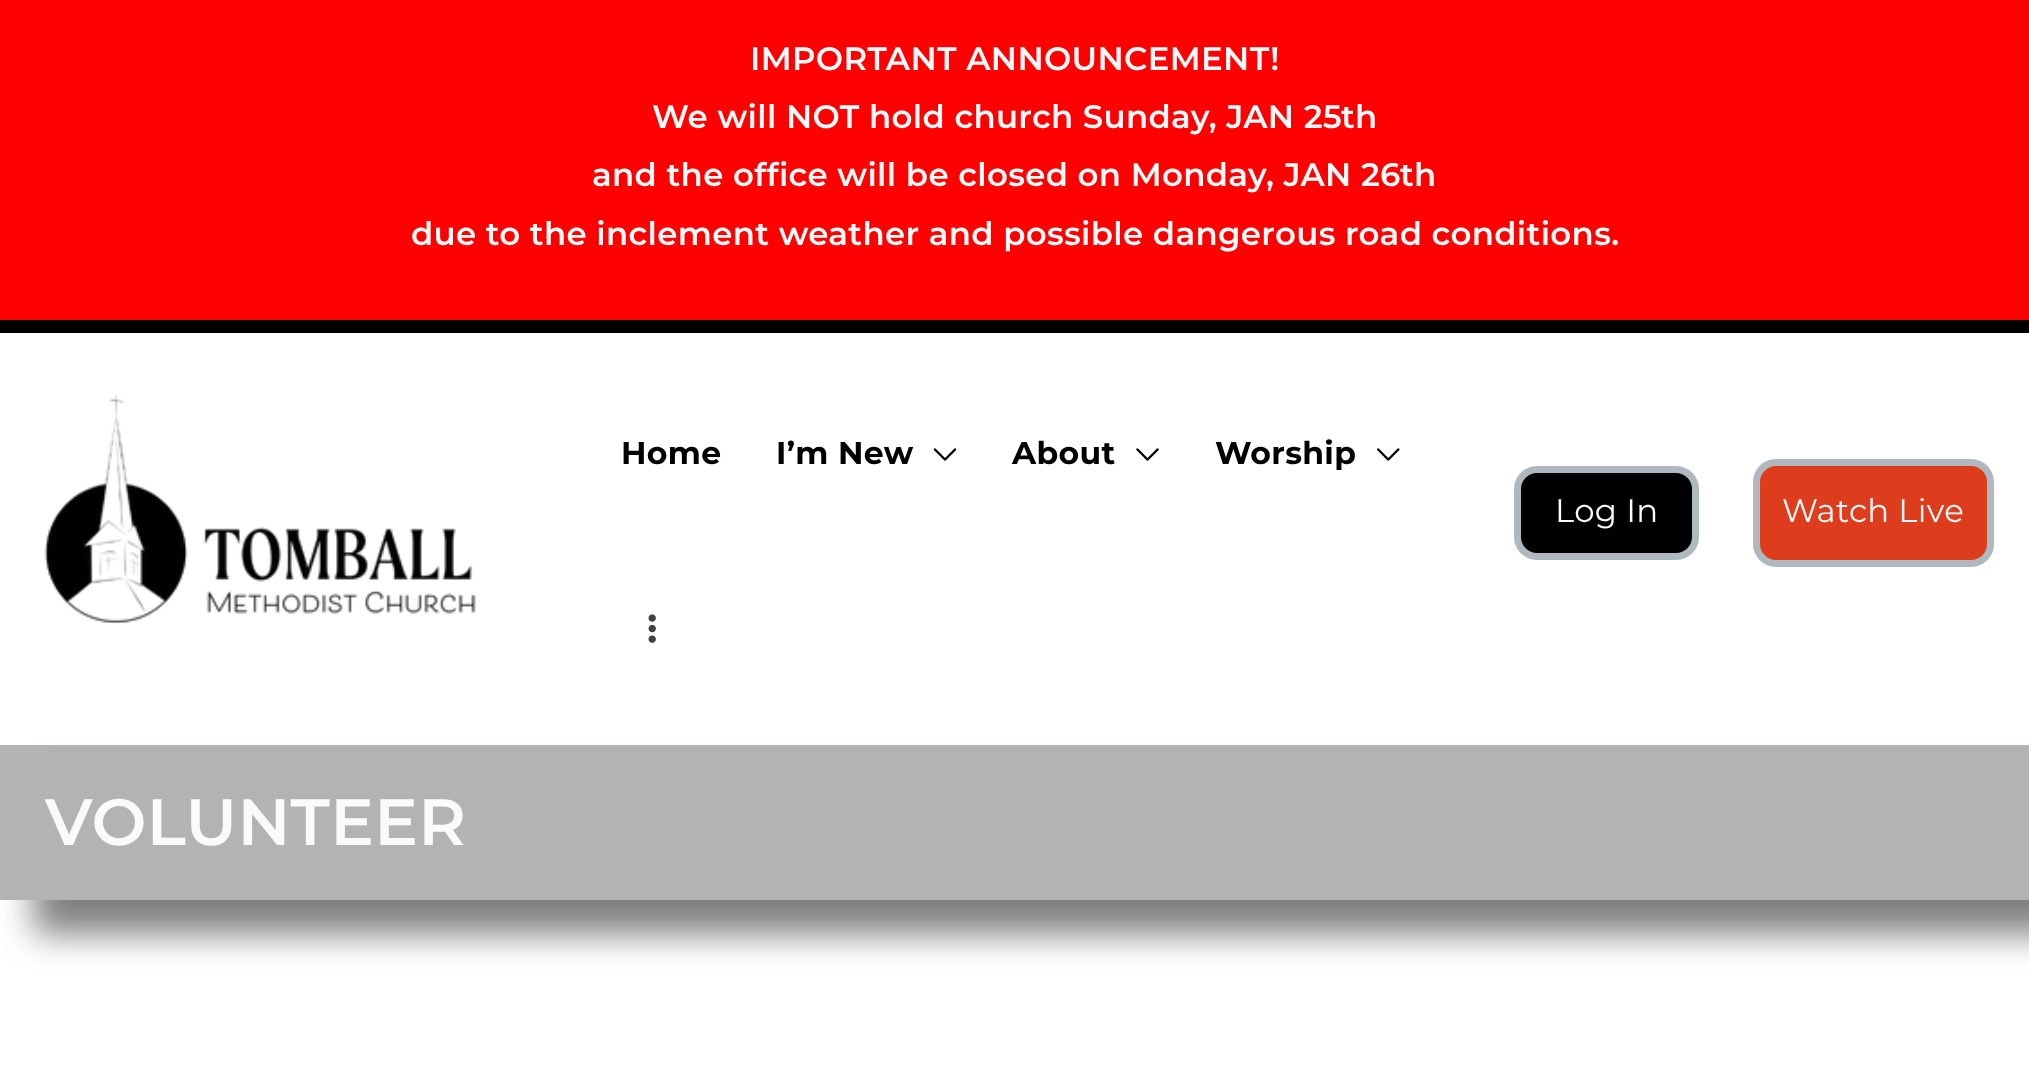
<!DOCTYPE html>
<meta charset="utf-8">
<style>body { margin: 0 } canvas { display: block }</style>
<canvas id="canvas" width="2029" height="1091"></canvas>
<img id="img1" src="img_01.png" hidden>
<img id="img2" src="img_02.png" hidden>
<img id="img3" src="img_03.png" hidden>
<img id="img4" src="img_04.png" hidden>
<img id="img5" src="img_05.png" hidden>
<script>
window.onload = function () {
	const canvas = document.getElementById("canvas");
	const ctx = canvas.getContext("2d");
	ctx.miterLimit = 4;
	ctx.fontKerning = "normal";
	function txt(s, x, y) {
		ctx.fillText(s, x, y);
	}
	function fill(x, y, w, h) {
		ctx.fillRect(x, y, w, h);
	}
	function img(id, x, y, w, h) {
		ctx.drawImage(document.getElementById(id), x, y, w, h);
	}

	ctx.fillStyle = "#FF0000";
	fill(0, 0, 2029, 1091);
	ctx.fillStyle = "#000000";
	fill(0, 320, 2029, 13);
	ctx.fillStyle = "#FFFFFF";
	fill(0, 333, 2029, 412);
	img("img1", 44, 394, 432, 230);
	img("img2", 933, 448, 24, 13);
	img("img3", 1136, 448, 23, 13);
	img("img4", 1377, 448, 23, 13);
	img("img5", 648, 614, 8, 29);
	ctx.fillStyle = "#000000";
	ctx.beginPath();
	ctx.roundRect(1517.5, 469.5, 178, 87, 19.5);
	ctx.fill();
	ctx.strokeStyle = "#AEB8BF";
	ctx.lineWidth = 7;
	ctx.stroke();
	ctx.fillStyle = "#DD3D1C";
	ctx.beginPath();
	ctx.roundRect(1756.5, 462.5, 234, 101, 19.5);
	ctx.fill();
	ctx.stroke();
	ctx.fillStyle = "#FFFFFF";
	fill(0, 900, 2029, 191);
	ctx.fillStyle = "rgba(0, 0, 0, 0.5)";
	ctx.filter = "blur(17px)";
	ctx.beginPath();
	ctx.rect(34, 779, 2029, 155);
	ctx.fill();
	ctx.filter = "none";
	ctx.fillStyle = "#B3B3B3";
	fill(0, 745, 2029, 155);
	ctx.letterSpacing = "0.35px";
	ctx.font = "600 32.4px Montserrat";
	ctx.fillStyle = "#FAFAFA";
	txt("IMPORTANT ANNOUNCEMENT!", 750, 70);
	txt("We will NOT hold church Sunday, JAN 25", 652, 128);
	txt("th", 1341, 128);
	txt("and the office will be closed on Monday, JAN 26", 592, 186);
	txt("th", 1400, 186);
	txt("due to the inclement weather and possible dangerous road conditions.", 411, 245);
	ctx.font = "bold 31.5px Montserrat";
	ctx.fillStyle = "#000000";
	txt("Home", 621, 464);
	txt("I’m New", 776, 464);
	txt("About", 1012, 464);
	txt("Worship", 1215, 464);
	ctx.font = "32.4px Montserrat";
	ctx.fillStyle = "#FAFAFA";
	txt("Log In", 1555, 522);
	txt("Watch Live", 1782, 522);
	ctx.font = "600 65.25px Montserrat";
	txt("VOLUNTEER", 45, 845);
};
</script>
